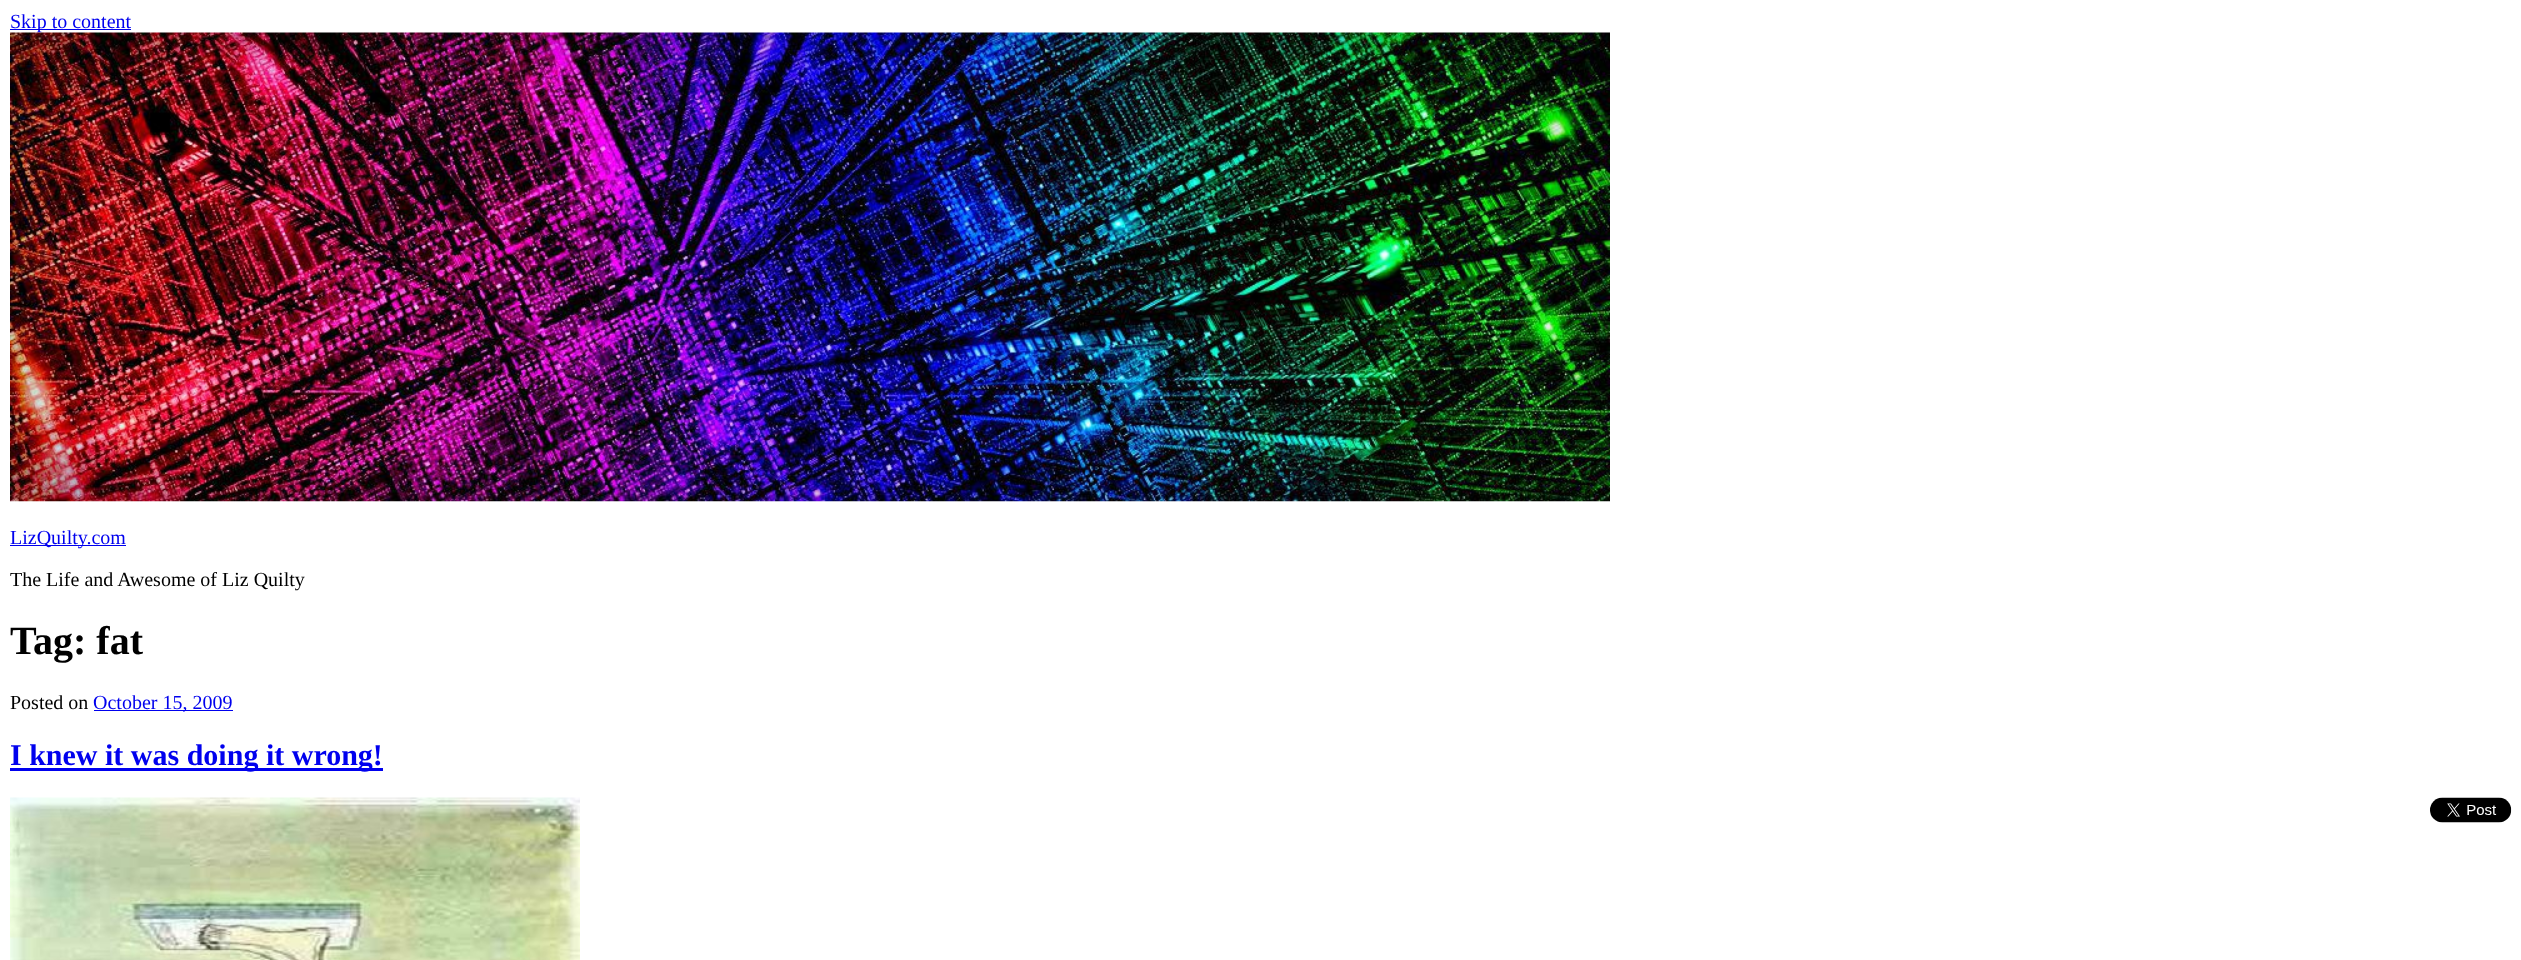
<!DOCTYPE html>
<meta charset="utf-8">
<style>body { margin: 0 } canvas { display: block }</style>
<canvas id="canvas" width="2521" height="960"></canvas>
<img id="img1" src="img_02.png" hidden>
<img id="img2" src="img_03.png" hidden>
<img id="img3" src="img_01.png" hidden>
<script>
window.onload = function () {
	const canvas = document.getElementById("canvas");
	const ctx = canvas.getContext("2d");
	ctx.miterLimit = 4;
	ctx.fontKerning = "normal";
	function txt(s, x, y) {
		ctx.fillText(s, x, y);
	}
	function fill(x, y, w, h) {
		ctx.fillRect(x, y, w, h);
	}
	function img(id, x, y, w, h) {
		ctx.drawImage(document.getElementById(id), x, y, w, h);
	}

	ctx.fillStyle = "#FFFFFF";
	fill(0, 0, 2521, 960);
	ctx.fillStyle = "#0000EE";
	fill(10, 29, 121, 1);
	fill(10, 545, 116, 1);
	fill(94, 710, 139, 1);
	fill(10, 768, 373, 3);
	img("img1", 10, 797, 570, 163);
	img("img2", 2430, 797, 82, 26);
	ctx.font = "20px Liberation Serif";
	txt("Skip to content", 10, 28);
	img("img3", 10, 32, 1600, 470);
	txt("LizQuilty.com", 10, 544);
	ctx.fillStyle = "#000000";
	txt("The Life and Awesome of Liz Quilty", 10, 586);
	ctx.font = "bold 40px Liberation Serif";
	txt("Tag: fat", 10, 654);
	ctx.font = "20px Liberation Serif";
	txt("Posted on", 10, 709);
	ctx.fillStyle = "#0000EE";
	txt("October 15, 2009", 93, 709);
	ctx.font = "bold 30px Liberation Serif";
	txt("I knew it was doing it wrong!", 10, 765);
};
</script>
